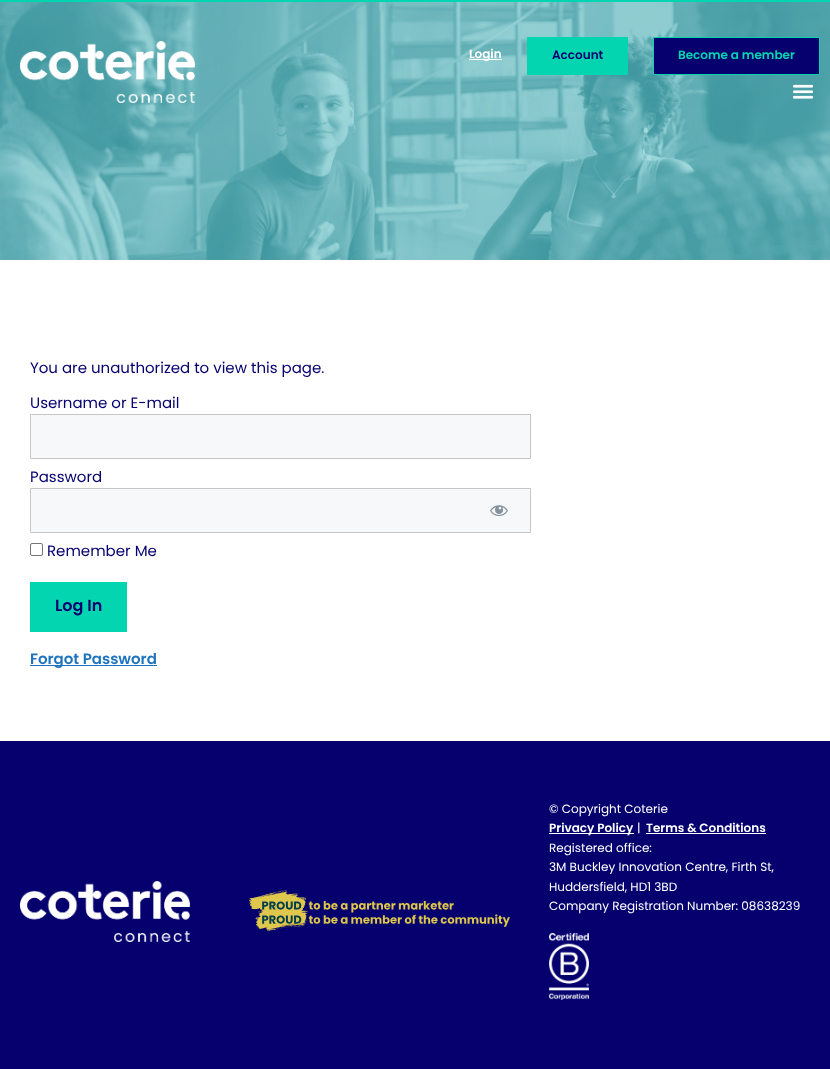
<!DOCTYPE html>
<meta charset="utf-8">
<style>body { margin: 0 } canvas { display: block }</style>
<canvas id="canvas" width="830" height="1069"></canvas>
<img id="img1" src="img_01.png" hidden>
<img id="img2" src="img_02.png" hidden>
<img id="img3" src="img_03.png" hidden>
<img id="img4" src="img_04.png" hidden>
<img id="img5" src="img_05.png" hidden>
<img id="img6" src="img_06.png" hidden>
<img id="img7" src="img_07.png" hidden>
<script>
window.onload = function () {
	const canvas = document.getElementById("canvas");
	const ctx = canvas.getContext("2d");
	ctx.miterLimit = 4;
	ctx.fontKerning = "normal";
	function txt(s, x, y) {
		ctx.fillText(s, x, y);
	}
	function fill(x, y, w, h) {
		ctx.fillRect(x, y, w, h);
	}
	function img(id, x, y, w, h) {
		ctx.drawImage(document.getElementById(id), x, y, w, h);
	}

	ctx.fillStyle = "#FFFFFF";
	fill(0, 0, 830, 1069);
	img("img1", 0, 2, 830, 258);
	ctx.fillStyle = "#03D5B0";
	fill(0, 0, 830, 2);
	img("img2", 20, 41, 175, 62);
	ctx.fillStyle = "#FFFFFF";
	fill(469, 59, 33, 1);
	ctx.fillStyle = "#03D5B0";
	fill(527, 37, 101, 38);
	ctx.fillStyle = "#05006E";
	ctx.beginPath();
	ctx.rect(653.5, 37.5, 166, 37);
	ctx.fill();
	ctx.strokeStyle = "#03D5B0";
	ctx.stroke();
	img("img3", 792, 84, 22, 15);
	ctx.fillStyle = "#F7F8F9";
	ctx.beginPath();
	ctx.rect(30.5, 414.5, 500, 44);
	ctx.fill();
	ctx.strokeStyle = "#C6C6C7";
	ctx.stroke();
	ctx.beginPath();
	ctx.rect(30.5, 488.5, 500, 44);
	ctx.fill();
	ctx.stroke();
	img("img4", 490, 505, 18, 12);
	ctx.beginPath();
	ctx.roundRect(30.5, 543.5, 12, 12, 1.5);
	ctx.strokeStyle = "#767676";
	ctx.stroke();
	ctx.fillStyle = "#03D5B0";
	fill(30, 582, 97, 50);
	ctx.fillStyle = "#1E73BE";
	fill(30, 665, 127, 1);
	ctx.fillStyle = "#05006E";
	fill(0, 741, 830, 328);
	img("img5", 20, 881, 170, 61);
	img("img6", 249, 890, 261, 43);
	ctx.fillStyle = "#FFFFFF";
	fill(549, 833, 85, 1);
	fill(646, 833, 120, 1);
	img("img7", 549, 933, 40, 67);
	ctx.font = "600 12px Poppins";
	txt("Login", 469, 58);
	ctx.fillStyle = "#05006E";
	txt("Account", 552, 59);
	ctx.fillStyle = "#03D5B0";
	txt("Become a member", 678, 59);
	ctx.font = "15px Poppins";
	ctx.fillStyle = "#05006E";
	txt("You are unauthorized to view this page.", 30, 373);
	txt("Username or E-mail", 30, 408);
	txt("Password", 30, 482);
	txt("Remember Me", 47, 556);
	ctx.font = "600 16px Poppins";
	txt("Log In", 55, 611);
	ctx.font = "600 15px Poppins";
	ctx.fillStyle = "#1E73BE";
	txt("Forgot Password", 30, 664);
	ctx.font = "12px Poppins";
	ctx.fillStyle = "#FFFFFF";
	txt("© Copyright Coterie", 549, 813);
	ctx.font = "600 12px Poppins";
	txt("Privacy Policy", 549, 832);
	ctx.font = "12px Poppins";
	txt("|", 637, 832);
	ctx.font = "600 12px Poppins";
	txt("Terms & Conditions", 646, 832);
	ctx.font = "12px Poppins";
	txt("Registered office:", 549, 852);
	txt("3M Buckley Innovation Centre, Firth St,", 549, 871);
	txt("Huddersfield, HD1 3BD", 549, 891);
	txt("Company Registration Number: 08638239", 549, 910);
};
</script>
